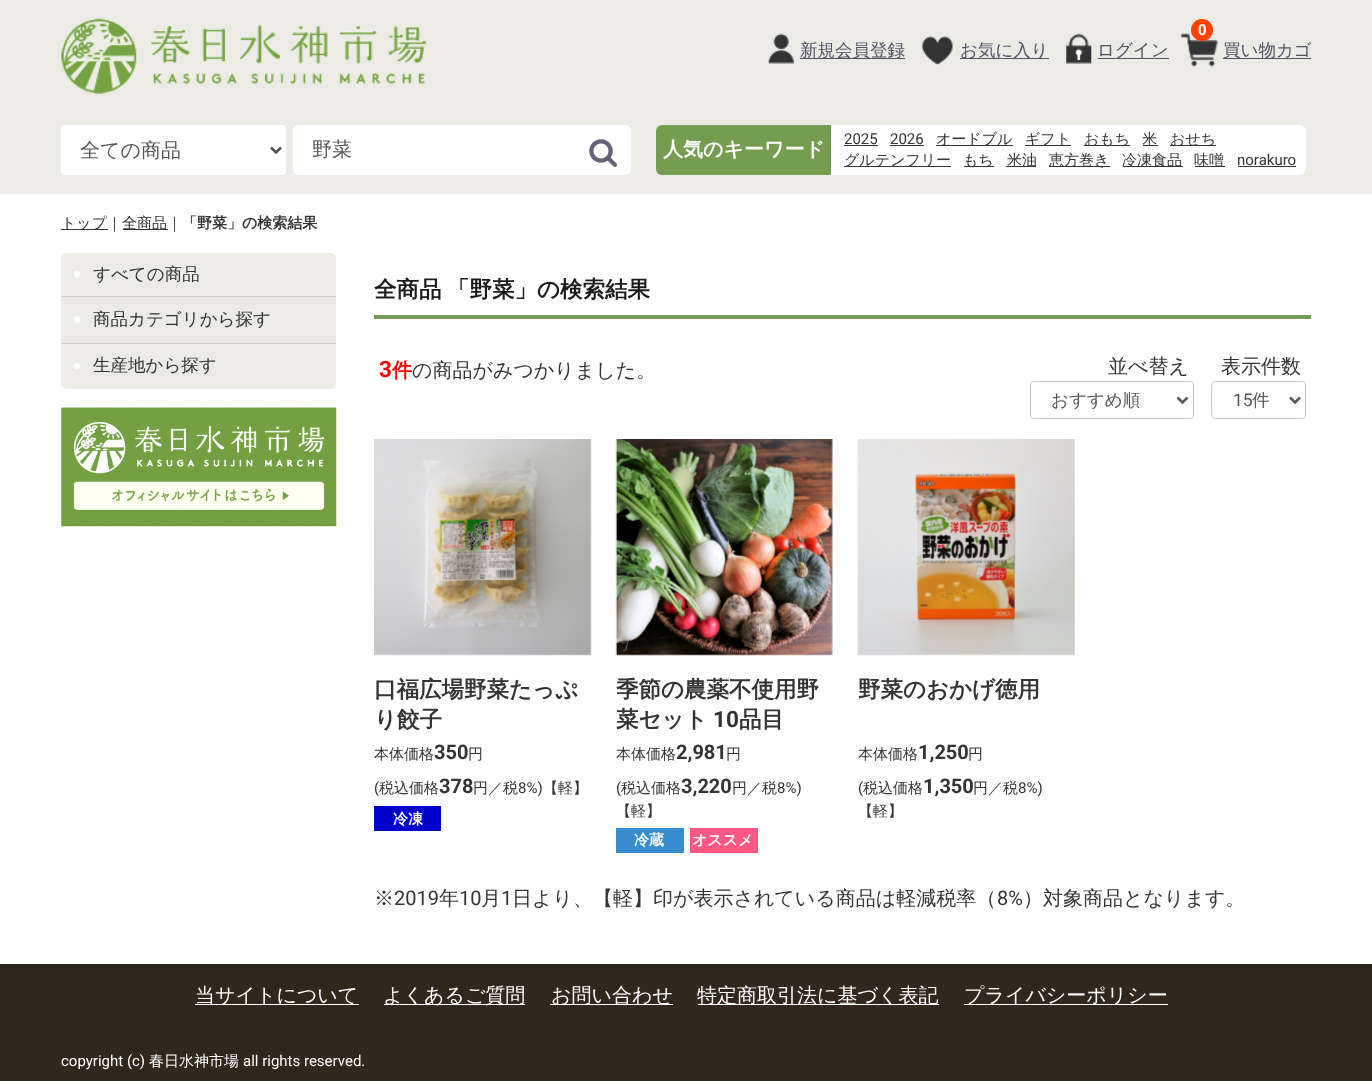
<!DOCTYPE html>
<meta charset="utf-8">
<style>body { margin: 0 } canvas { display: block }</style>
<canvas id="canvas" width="1372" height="1081"></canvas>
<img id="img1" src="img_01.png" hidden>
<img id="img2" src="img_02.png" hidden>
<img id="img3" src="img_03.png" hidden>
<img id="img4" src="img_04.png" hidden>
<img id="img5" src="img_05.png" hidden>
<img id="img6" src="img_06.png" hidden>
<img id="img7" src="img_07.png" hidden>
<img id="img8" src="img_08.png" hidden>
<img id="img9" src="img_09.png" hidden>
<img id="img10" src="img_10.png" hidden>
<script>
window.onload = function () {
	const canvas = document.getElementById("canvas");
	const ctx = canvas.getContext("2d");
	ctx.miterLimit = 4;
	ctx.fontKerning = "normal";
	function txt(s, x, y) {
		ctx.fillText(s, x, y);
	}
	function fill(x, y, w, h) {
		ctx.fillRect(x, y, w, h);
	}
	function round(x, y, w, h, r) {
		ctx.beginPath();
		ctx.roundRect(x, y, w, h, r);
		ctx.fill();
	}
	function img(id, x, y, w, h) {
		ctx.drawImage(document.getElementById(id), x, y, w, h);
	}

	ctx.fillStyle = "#FFFFFF";
	fill(0, 0, 1372, 1081);
	ctx.fillStyle = "#EDEBE5";
	fill(0, 0, 1372, 194);
	img("img1", 61, 18, 366, 76);
	img("img2", 768, 33, 26, 31);
	ctx.fillStyle = "#525263";
	fill(800, 58, 105, 1);
	img("img3", 922, 36, 31, 29);
	fill(960, 58, 89, 1);
	img("img4", 1066, 33, 26, 31);
	fill(1098, 58, 71, 1);
	img("img5", 1181, 33, 37, 34);
	ctx.fillStyle = "#FF4000";
	ctx.beginPath();
	ctx.arc(1202, 30, 11, 0, Math.PI * 2);
	ctx.fill();
	ctx.fillStyle = "#525263";
	fill(1223, 58, 88, 1);
	ctx.fillStyle = "#FFFFFF";
	round(61, 125, 225, 50, 4);
	ctx.beginPath();
	ctx.moveTo(271, 147.5);
	ctx.lineTo(276, 152.5);
	ctx.lineTo(281, 147.5);
	ctx.strokeStyle = "#555555";
	ctx.lineWidth = 2.5;
	ctx.stroke();
	round(293, 125, 338, 50, 6);
	img("img6", 589, 139, 28, 28);
	ctx.fillStyle = "#759D4F";
	ctx.beginPath();
	ctx.roundRect(656, 125, 175, 50, [6, 0, 0, 6]);
	ctx.fill();
	ctx.fillStyle = "#FFFFFF";
	ctx.beginPath();
	ctx.roundRect(831, 125, 475, 50, [0, 6, 6, 0]);
	ctx.fill();
	ctx.fillStyle = "#343435";
	fill(844, 145, 34, 1);
	fill(890, 145, 34, 1);
	fill(936, 145, 77, 1);
	fill(1025, 145, 46, 1);
	fill(1084, 145, 46, 1);
	fill(1143, 145, 15, 1);
	fill(1170, 145, 46, 1);
	fill(844, 166, 107, 1);
	fill(964, 166, 30, 1);
	fill(1006, 166, 30, 1);
	fill(1049, 166, 61, 1);
	fill(1123, 166, 60, 1);
	fill(1195, 166, 30, 1);
	fill(1238, 166, 58, 1);
	fill(61, 229, 47, 1);
	fill(123, 229, 45, 1);
	ctx.fillStyle = "#EDEBE5";
	ctx.beginPath();
	ctx.roundRect(61, 253, 275, 45, [6, 6, 0, 0]);
	ctx.fill();
	ctx.fillStyle = "#CCCCCC";
	fill(61, 296, 275, 1);
	ctx.fillStyle = "#FFFFFF";
	round(74, 271, 6, 7, 3);
	ctx.fillStyle = "#EDEBE5";
	fill(61, 298, 275, 45);
	ctx.fillStyle = "#CCCCCC";
	fill(61, 343, 275, 1);
	ctx.fillStyle = "#FFFFFF";
	round(74, 316, 6, 7, 3);
	ctx.fillStyle = "#EDEBE5";
	ctx.beginPath();
	ctx.roundRect(61, 344, 275, 45, [0, 0, 6, 6]);
	ctx.fill();
	ctx.fillStyle = "#FFFFFF";
	ctx.beginPath();
	ctx.arc(77, 366, 3, 0, Math.PI * 2);
	ctx.fill();
	img("img7", 61, 407, 276, 120);
	ctx.fillStyle = "#759D4F";
	fill(374, 315, 937, 4);
	ctx.beginPath();
	ctx.roundRect(1030.5, 381.5, 163, 37, 3.5);
	ctx.strokeStyle = "#C4CCCE";
	ctx.lineWidth = 1;
	ctx.stroke();
	ctx.beginPath();
	ctx.moveTo(1177.5, 397.5);
	ctx.lineTo(1182.5, 402.5);
	ctx.lineTo(1187.5, 397.5);
	ctx.strokeStyle = "#555555";
	ctx.lineWidth = 2.5;
	ctx.stroke();
	ctx.beginPath();
	ctx.roundRect(1211.5, 381.5, 94, 37, 3.5);
	ctx.strokeStyle = "#C4CCCE";
	ctx.lineWidth = 1;
	ctx.stroke();
	ctx.beginPath();
	ctx.moveTo(1290, 397.5);
	ctx.lineTo(1295, 402.5);
	ctx.lineTo(1300, 397.5);
	ctx.strokeStyle = "#555555";
	ctx.lineWidth = 2.5;
	ctx.stroke();
	img("img8", 374, 439, 218, 217);
	ctx.fillStyle = "#0000CD";
	fill(374, 806, 67, 25);
	img("img9", 615, 439, 218, 217);
	ctx.fillStyle = "#388DD1";
	fill(616, 828, 68, 25);
	ctx.fillStyle = "#FF5983";
	fill(690, 828, 68, 25);
	img("img10", 857, 439, 218, 217);
	ctx.fillStyle = "#30271D";
	fill(0, 964, 1372, 117);
	ctx.fillStyle = "#FFFFFF";
	fill(195, 1004, 164, 1);
	fill(384, 1004, 141, 1);
	fill(550, 1004, 123, 1);
	fill(698, 1004, 241, 1);
	fill(964, 1004, 204, 1);
	ctx.font = "500 17.5px WenQuanYi Zen Hei";
	ctx.fillStyle = "#525263";
	txt("新規会員登録", 800, 56);
	txt("お気に入り", 960, 56);
	txt("ログイン", 1097, 56);
	ctx.font = "bold 15px Roboto";
	ctx.fillStyle = "#FFFFFF";
	txt("0", 1198, 35);
	ctx.font = "500 17.5px WenQuanYi Zen Hei";
	ctx.fillStyle = "#525263";
	txt("買い物カゴ", 1223, 56);
	ctx.font = "500 20px WenQuanYi Zen Hei";
	ctx.fillStyle = "#555555";
	txt("全ての商品", 80, 157);
	txt("野菜", 312, 156);
	ctx.font = "bold 20px WenQuanYi Zen Hei";
	ctx.fillStyle = "#FFFFFF";
	txt("人気のキーワード", 663, 156);
	ctx.font = "15px Roboto";
	ctx.fillStyle = "#343435";
	txt("2025", 844, 144);
	txt("2026", 890, 144);
	ctx.font = "500 15px WenQuanYi Zen Hei";
	txt("オードブル", 936, 144);
	txt("ギフト", 1025, 144);
	txt("おもち", 1084, 144);
	txt("米", 1142, 144);
	txt("おせち", 1170, 144);
	txt("グルテンフリー", 844, 165);
	txt("もち", 963, 165);
	txt("米油", 1007, 165);
	txt("恵方巻き", 1049, 165);
	txt("冷凍食品", 1122, 165);
	txt("味噌", 1194, 165);
	ctx.font = "15px Roboto";
	txt("norakuro", 1237, 165);
	ctx.font = "500 15px WenQuanYi Zen Hei";
	txt("トップ", 61, 228);
	txt("｜", 107, 228);
	txt("全商品", 122, 228);
	txt("｜", 167, 228);
	ctx.font = "bold 15px WenQuanYi Zen Hei";
	txt("「野菜」の検索結果", 182, 228);
	ctx.font = "500 17.5px WenQuanYi Zen Hei";
	ctx.fillStyle = "#2E3233";
	txt("すべての商品", 93, 280);
	txt("商品カテゴリから探す", 93, 325);
	txt("生産地から探す", 93, 371);
	ctx.font = "bold 22.5px WenQuanYi Zen Hei";
	ctx.fillStyle = "#1C1B1B";
	txt("全商品", 374, 297);
	txt("「野菜」の検索結果", 447, 297);
	ctx.font = "bold 22.5px Roboto";
	ctx.fillStyle = "#FF0000";
	txt("3", 379, 377);
	ctx.font = "bold 20px WenQuanYi Zen Hei";
	txt("件", 392, 377);
	ctx.font = "500 20px WenQuanYi Zen Hei";
	ctx.fillStyle = "#343435";
	txt("の商品がみつかりました。", 412, 377);
	txt("並べ替え", 1108, 373);
	ctx.font = "500 17.5px WenQuanYi Zen Hei";
	ctx.fillStyle = "#555555";
	txt("おすすめ順", 1051, 406);
	ctx.font = "500 20px WenQuanYi Zen Hei";
	ctx.fillStyle = "#343435";
	txt("表示件数", 1221, 373);
	ctx.font = "17.5px Roboto";
	ctx.fillStyle = "#555555";
	txt("15", 1233, 406);
	ctx.font = "500 17.5px WenQuanYi Zen Hei";
	txt("件", 1252, 406);
	ctx.font = "bold 22.5px WenQuanYi Zen Hei";
	ctx.fillStyle = "#343435";
	txt("口福広場野菜たっぷ", 374, 697);
	txt("り餃子", 374, 727);
	ctx.font = "500 15px WenQuanYi Zen Hei";
	txt("本体価格", 374, 759);
	ctx.font = "bold 20px Roboto";
	txt("350", 434, 759);
	ctx.font = "500 15px WenQuanYi Zen Hei";
	txt("円", 468, 759);
	ctx.font = "15px Roboto";
	txt("(", 374, 793);
	ctx.font = "500 15px WenQuanYi Zen Hei";
	txt("税込価格", 379, 793);
	ctx.font = "bold 20px Roboto";
	txt("378", 439, 793);
	ctx.font = "500 15px WenQuanYi Zen Hei";
	txt("円／税", 473, 793);
	ctx.font = "15px Roboto";
	txt("8%)", 518, 793);
	ctx.font = "500 15px WenQuanYi Zen Hei";
	txt("【軽】", 543, 793);
	ctx.font = "bold 15px WenQuanYi Zen Hei";
	ctx.fillStyle = "#FFFFFF";
	txt("冷凍", 393, 824);
	ctx.font = "bold 22.5px WenQuanYi Zen Hei";
	ctx.fillStyle = "#343435";
	txt("季節の農薬不使用野", 616, 697);
	txt("菜セット", 616, 727);
	ctx.font = "bold 22.5px Roboto";
	txt("10", 713, 727);
	ctx.font = "bold 22.5px WenQuanYi Zen Hei";
	txt("品目", 739, 727);
	ctx.font = "500 15px WenQuanYi Zen Hei";
	txt("本体価格", 616, 759);
	ctx.font = "bold 20px Roboto";
	txt("2,981", 676, 759);
	ctx.font = "500 15px WenQuanYi Zen Hei";
	txt("円", 726, 759);
	ctx.font = "15px Roboto";
	txt("(", 616, 793);
	ctx.font = "500 15px WenQuanYi Zen Hei";
	txt("税込価格", 621, 793);
	ctx.font = "bold 20px Roboto";
	txt("3,220", 681, 793);
	ctx.font = "500 15px WenQuanYi Zen Hei";
	txt("円／税", 732, 793);
	ctx.font = "15px Roboto";
	txt("8%)", 777, 793);
	ctx.font = "500 15px WenQuanYi Zen Hei";
	txt("【軽】", 616, 816);
	ctx.font = "bold 15px WenQuanYi Zen Hei";
	ctx.fillStyle = "#FFFFFF";
	txt("冷蔵", 634, 845);
	txt("オススメ", 692, 845);
	ctx.font = "bold 22.5px WenQuanYi Zen Hei";
	ctx.fillStyle = "#343435";
	txt("野菜のおかげ徳用", 858, 697);
	ctx.font = "500 15px WenQuanYi Zen Hei";
	txt("本体価格", 858, 759);
	ctx.font = "bold 20px Roboto";
	txt("1,250", 918, 759);
	ctx.font = "500 15px WenQuanYi Zen Hei";
	txt("円", 968, 759);
	ctx.font = "15px Roboto";
	txt("(", 858, 793);
	ctx.font = "500 15px WenQuanYi Zen Hei";
	txt("税込価格", 863, 793);
	ctx.font = "bold 20px Roboto";
	txt("1,350", 923, 793);
	ctx.font = "500 15px WenQuanYi Zen Hei";
	txt("円／税", 973, 793);
	ctx.font = "15px Roboto";
	txt("8%)", 1018, 793);
	ctx.font = "500 15px WenQuanYi Zen Hei";
	txt("【軽】", 858, 816);
	ctx.font = "500 20px WenQuanYi Zen Hei";
	txt("※", 374, 905);
	ctx.font = "20px Roboto";
	txt("2019", 394, 905);
	ctx.font = "500 20px WenQuanYi Zen Hei";
	txt("年", 439, 905);
	ctx.font = "20px Roboto";
	txt("10", 459, 905);
	ctx.font = "500 20px WenQuanYi Zen Hei";
	txt("月", 481, 905);
	ctx.font = "20px Roboto";
	txt("1", 501, 905);
	ctx.font = "500 20px WenQuanYi Zen Hei";
	txt("日より、【軽】印が表示されている商品は軽減税率（", 512, 905);
	ctx.font = "20px Roboto";
	txt("8%", 997, 905);
	ctx.font = "500 20px WenQuanYi Zen Hei";
	txt("）対象商品となります。", 1023, 905);
	ctx.fillStyle = "#FFFFFF";
	txt("当サイトについて", 195, 1002);
	txt("よくあるご質問", 383, 1002);
	txt("お問い合わせ", 551, 1002);
	txt("特定商取引法に基づく表記", 697, 1002);
	txt("プライバシーポリシー", 964, 1002);
	ctx.font = "15px Roboto";
	txt("copyright (c)", 61, 1066);
	ctx.font = "500 15px WenQuanYi Zen Hei";
	txt("春日水神市場", 149, 1066);
	ctx.font = "15px Roboto";
	txt("all rights reserved.", 243, 1066);
};
</script>
